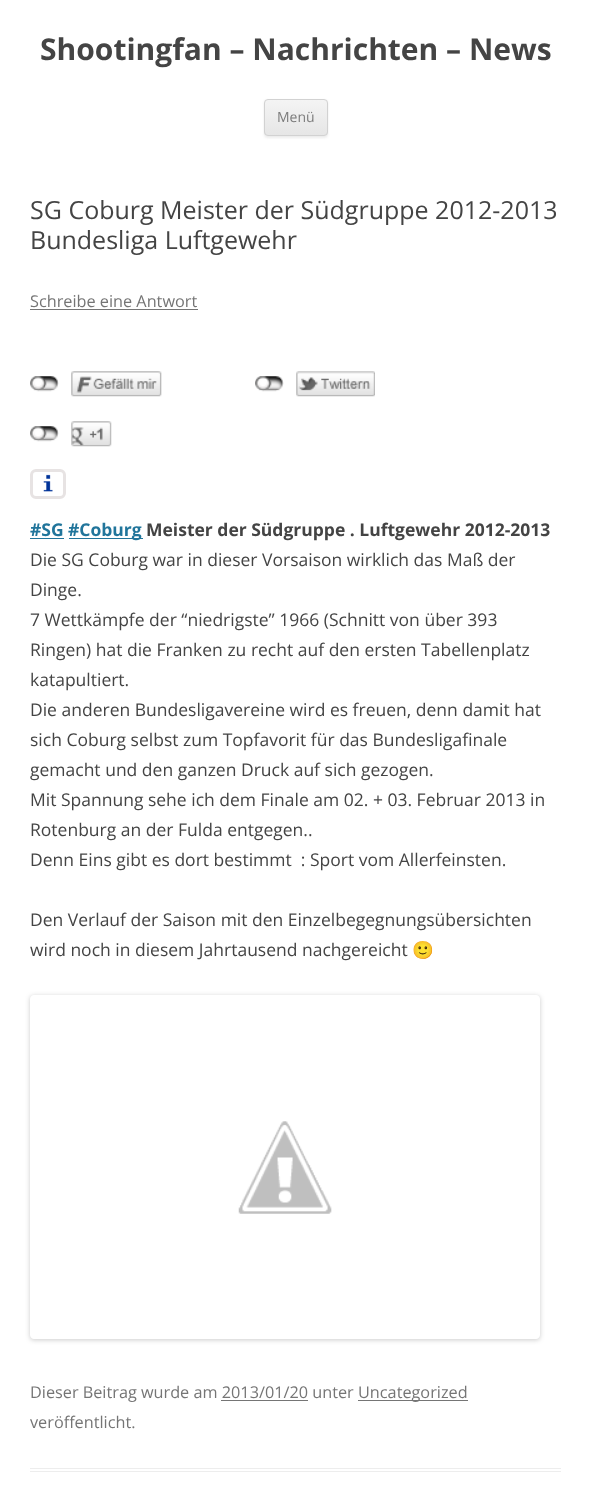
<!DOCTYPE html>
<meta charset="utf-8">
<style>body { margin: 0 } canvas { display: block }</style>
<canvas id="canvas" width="591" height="1512"></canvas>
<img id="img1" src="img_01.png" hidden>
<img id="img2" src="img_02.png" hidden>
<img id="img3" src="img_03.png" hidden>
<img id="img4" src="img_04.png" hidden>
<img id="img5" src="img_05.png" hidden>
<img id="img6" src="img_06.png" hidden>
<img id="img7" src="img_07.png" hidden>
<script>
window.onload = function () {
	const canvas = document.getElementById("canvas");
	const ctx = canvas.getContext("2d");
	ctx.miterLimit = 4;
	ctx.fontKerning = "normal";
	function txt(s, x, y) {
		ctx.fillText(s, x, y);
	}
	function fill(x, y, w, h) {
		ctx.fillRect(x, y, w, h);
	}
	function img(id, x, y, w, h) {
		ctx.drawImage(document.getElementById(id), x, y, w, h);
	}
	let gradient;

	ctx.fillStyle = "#FFFFFF";
	fill(0, 0, 591, 1512);
	ctx.fillStyle = "rgba(64, 64, 64, 0.1)";
	ctx.filter = "blur(1px)";
	ctx.beginPath();
	ctx.roundRect(264, 100, 64, 38, 4);
	ctx.fill();
	ctx.filter = "none";
	ctx.save();
	ctx.beginPath();
	ctx.roundRect(264, 99, 64, 37, 4);
	ctx.clip();
	gradient = ctx.createLinearGradient(296, 100, 296, 135);
	gradient.addColorStop(0, "#F4F4F4");
	gradient.addColorStop(1, "#E6E6E6");
	ctx.fillStyle = gradient;
	fill(264, 100, 64, 35);
	ctx.restore();
	ctx.beginPath();
	ctx.roundRect(264.5, 99.5, 63, 36, 3.5);
	ctx.strokeStyle = "#D2D2D2";
	ctx.stroke();
	ctx.fillStyle = "#EDEDED";
	fill(30, 1468, 531, 1);
	fill(30, 1471, 531, 1);
	ctx.fillStyle = "#757575";
	fill(30, 309, 168, 1);
	img("img1", 30, 376, 29, 16);
	img("img2", 71, 371, 91, 26);
	img("img3", 255, 376, 29, 16);
	img("img4", 296, 371, 79, 26);
	img("img1", 30, 426, 29, 16);
	img("img5", 71, 421, 41, 26);
	img("img6", 43, 474, 10, 18);
	ctx.beginPath();
	ctx.roundRect(31.5, 470.5, 33, 27, 4.5);
	ctx.strokeStyle = "#E7E3E3";
	ctx.lineWidth = 3;
	ctx.stroke();
	ctx.fillStyle = "#21759B";
	fill(30, 538, 34, 1);
	fill(69, 538, 74, 1);
	ctx.save();
	ctx.beginPath();
	ctx.moveTo(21, 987);
	ctx.lineTo(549, 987);
	ctx.lineTo(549, 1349);
	ctx.lineTo(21, 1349);
	ctx.closePath();
	ctx.moveTo(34, 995);
	ctx.lineTo(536, 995);
	ctx.bezierCurveTo(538, 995, 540, 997, 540, 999);
	ctx.lineTo(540, 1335);
	ctx.bezierCurveTo(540, 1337, 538, 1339, 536, 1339);
	ctx.lineTo(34, 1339);
	ctx.bezierCurveTo(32, 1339, 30, 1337, 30, 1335);
	ctx.lineTo(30, 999);
	ctx.bezierCurveTo(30, 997, 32, 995, 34, 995);
	ctx.closePath();
	ctx.clip("evenodd");
	ctx.fillStyle = "rgba(0, 0, 0, 0.2)";
	ctx.filter = "blur(2.5px)";
	ctx.beginPath();
	ctx.roundRect(30, 996, 510, 344, 4);
	ctx.fill();
	ctx.filter = "none";
	ctx.restore();
	img("img7", 238, 1121, 94, 93);
	ctx.fillStyle = "#757575";
	fill(358, 1400, 110, 1);
	fill(221, 1400, 87, 1);
	ctx.font = "bold 30px Open Sans";
	ctx.fillStyle = "#444444";
	txt("Shootingfan – Nachrichten – News", 40, 60);
	ctx.font = "14px Open Sans";
	ctx.fillStyle = "#7C7C7C";
	txt("Menü", 277, 122);
	ctx.font = "25px Open Sans";
	ctx.fillStyle = "#444444";
	txt("SG Coburg Meister der Südgruppe 2012-2013", 30, 219);
	txt("Bundesliga Luftgewehr", 30, 249);
	ctx.font = "16.25px Open Sans";
	ctx.fillStyle = "#757575";
	txt("Schreibe eine Antwort", 30, 307);
	ctx.font = "bold 17.5px Open Sans";
	ctx.fillStyle = "#21759B";
	txt("#SG", 30, 536);
	txt("#Coburg", 68, 536);
	ctx.fillStyle = "#444444";
	txt("Meister der Südgruppe . Luftgewehr 2012-2013", 146, 536);
	ctx.font = "17.5px Open Sans";
	txt("Die SG Coburg war in dieser Vorsaison wirklich das Maß der", 30, 566);
	txt("Dinge.", 30, 596);
	txt("7 Wettkämpfe der “niedrigste” 1966 (Schnitt von über 393", 30, 626);
	txt("Ringen) hat die Franken zu recht auf den ersten Tabellenplatz", 30, 656);
	txt("katapultiert.", 30, 686);
	txt("Die anderen Bundesligavereine wird es freuen, denn damit hat", 30, 716);
	txt("sich Coburg selbst zum Topfavorit für das Bundesligafinale", 30, 746);
	txt("gemacht und den ganzen Druck auf sich gezogen.", 30, 776);
	txt("Mit Spannung sehe ich dem Finale am 02. + 03. Februar 2013 in", 30, 806);
	txt("Rotenburg an der Fulda entgegen..", 30, 836);
	txt("Denn Eins gibt es dort bestimmt  : Sport vom Allerfeinsten.", 30, 866);
	txt("Den Verlauf der Saison mit den Einzelbegegnungsübersichten", 30, 926);
	txt("wird noch in diesem Jahrtausend nachgereicht", 30, 956);
	ctx.font = "17.5px Noto Color Emoji";
	txt("🙂", 412, 956);
	ctx.font = "16.25px Open Sans";
	ctx.fillStyle = "#757575";
	txt("Dieser Beitrag wurde am 2013/01/20 unter", 30, 1398);
	txt("Uncategorized", 358, 1398);
	txt("veröffentlicht.", 30, 1428);
};
</script>
